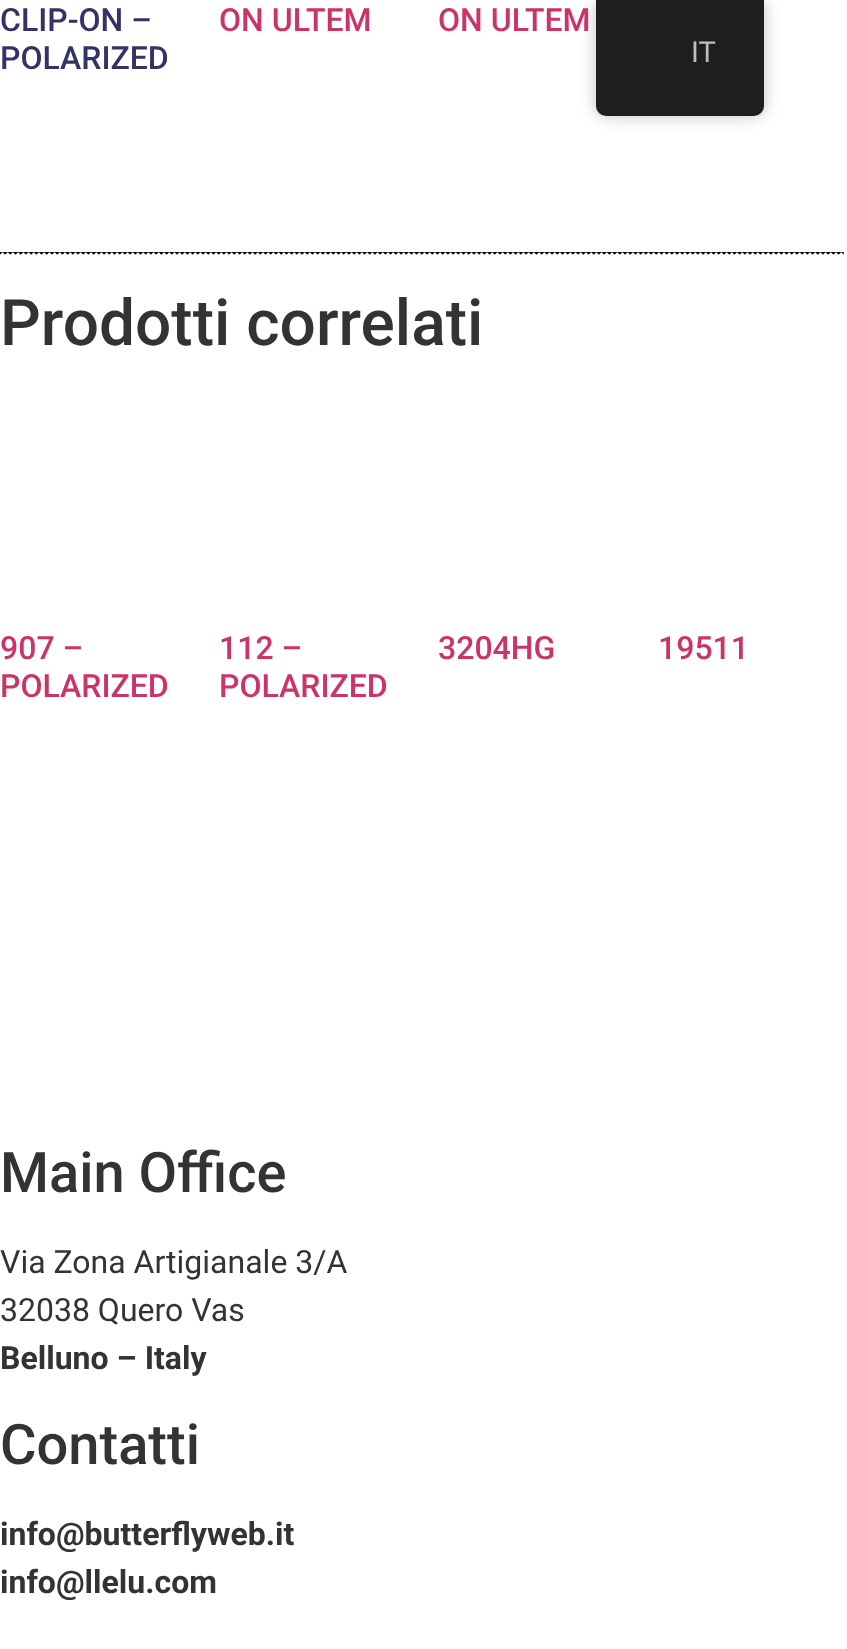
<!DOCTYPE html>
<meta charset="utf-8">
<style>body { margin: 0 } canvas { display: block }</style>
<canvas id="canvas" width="847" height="1649"></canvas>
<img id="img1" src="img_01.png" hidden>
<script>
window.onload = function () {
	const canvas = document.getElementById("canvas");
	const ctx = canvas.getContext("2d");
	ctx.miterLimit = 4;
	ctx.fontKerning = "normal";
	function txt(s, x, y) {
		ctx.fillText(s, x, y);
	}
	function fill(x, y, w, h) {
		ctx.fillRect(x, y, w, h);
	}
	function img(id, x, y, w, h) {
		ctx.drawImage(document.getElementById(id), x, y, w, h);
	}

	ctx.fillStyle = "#FFFFFF";
	fill(0, 0, 847, 1649);
	img("img1", 0, 252, 844, 3);
	ctx.fillStyle = "rgba(0, 0, 0, 0.25)";
	ctx.filter = "blur(8px)";
	ctx.beginPath();
	ctx.roundRect(596, 0, 168, 116, 10);
	ctx.fill();
	ctx.filter = "none";
	ctx.fillStyle = "#1E1E1E";
	ctx.beginPath();
	ctx.roundRect(596, 0, 168, 116, [0, 0, 10, 10]);
	ctx.fill();
	ctx.font = "500 32px Roboto";
	ctx.fillStyle = "#333366";
	txt("CLIP-ON –", 0, 31);
	txt("POLARIZED", 0, 69);
	ctx.fillStyle = "#CC3366";
	txt("ON ULTEM", 219, 31);
	txt("ON ULTEM", 438, 31);
	ctx.font = "500 64px Roboto";
	ctx.fillStyle = "#333333";
	txt("Prodotti correlati", 0, 345);
	ctx.font = "500 32px Roboto";
	ctx.fillStyle = "#CC3366";
	txt("907 –", 0, 659);
	txt("POLARIZED", 0, 697);
	txt("112 –", 219, 659);
	txt("POLARIZED", 219, 697);
	txt("3204HG", 438, 659);
	txt("19511", 658, 659);
	ctx.font = "29px Roboto";
	ctx.fillStyle = "#BDBDBD";
	txt("IT", 691, 62);
	ctx.font = "500 56px Roboto";
	ctx.fillStyle = "#333333";
	txt("Main Office", 0, 1192);
	ctx.font = "32px Roboto";
	txt("Via Zona Artigianale 3/A", 0, 1273);
	txt("32038 Quero Vas", 0, 1321);
	ctx.font = "bold 32px Roboto";
	txt("Belluno – Italy", 0, 1369);
	ctx.font = "500 56px Roboto";
	txt("Contatti", 0, 1464);
	ctx.font = "bold 32px Roboto";
	txt("info@butterflyweb.it", 0, 1545);
	txt("info@llelu.com", 0, 1593);
};
</script>
